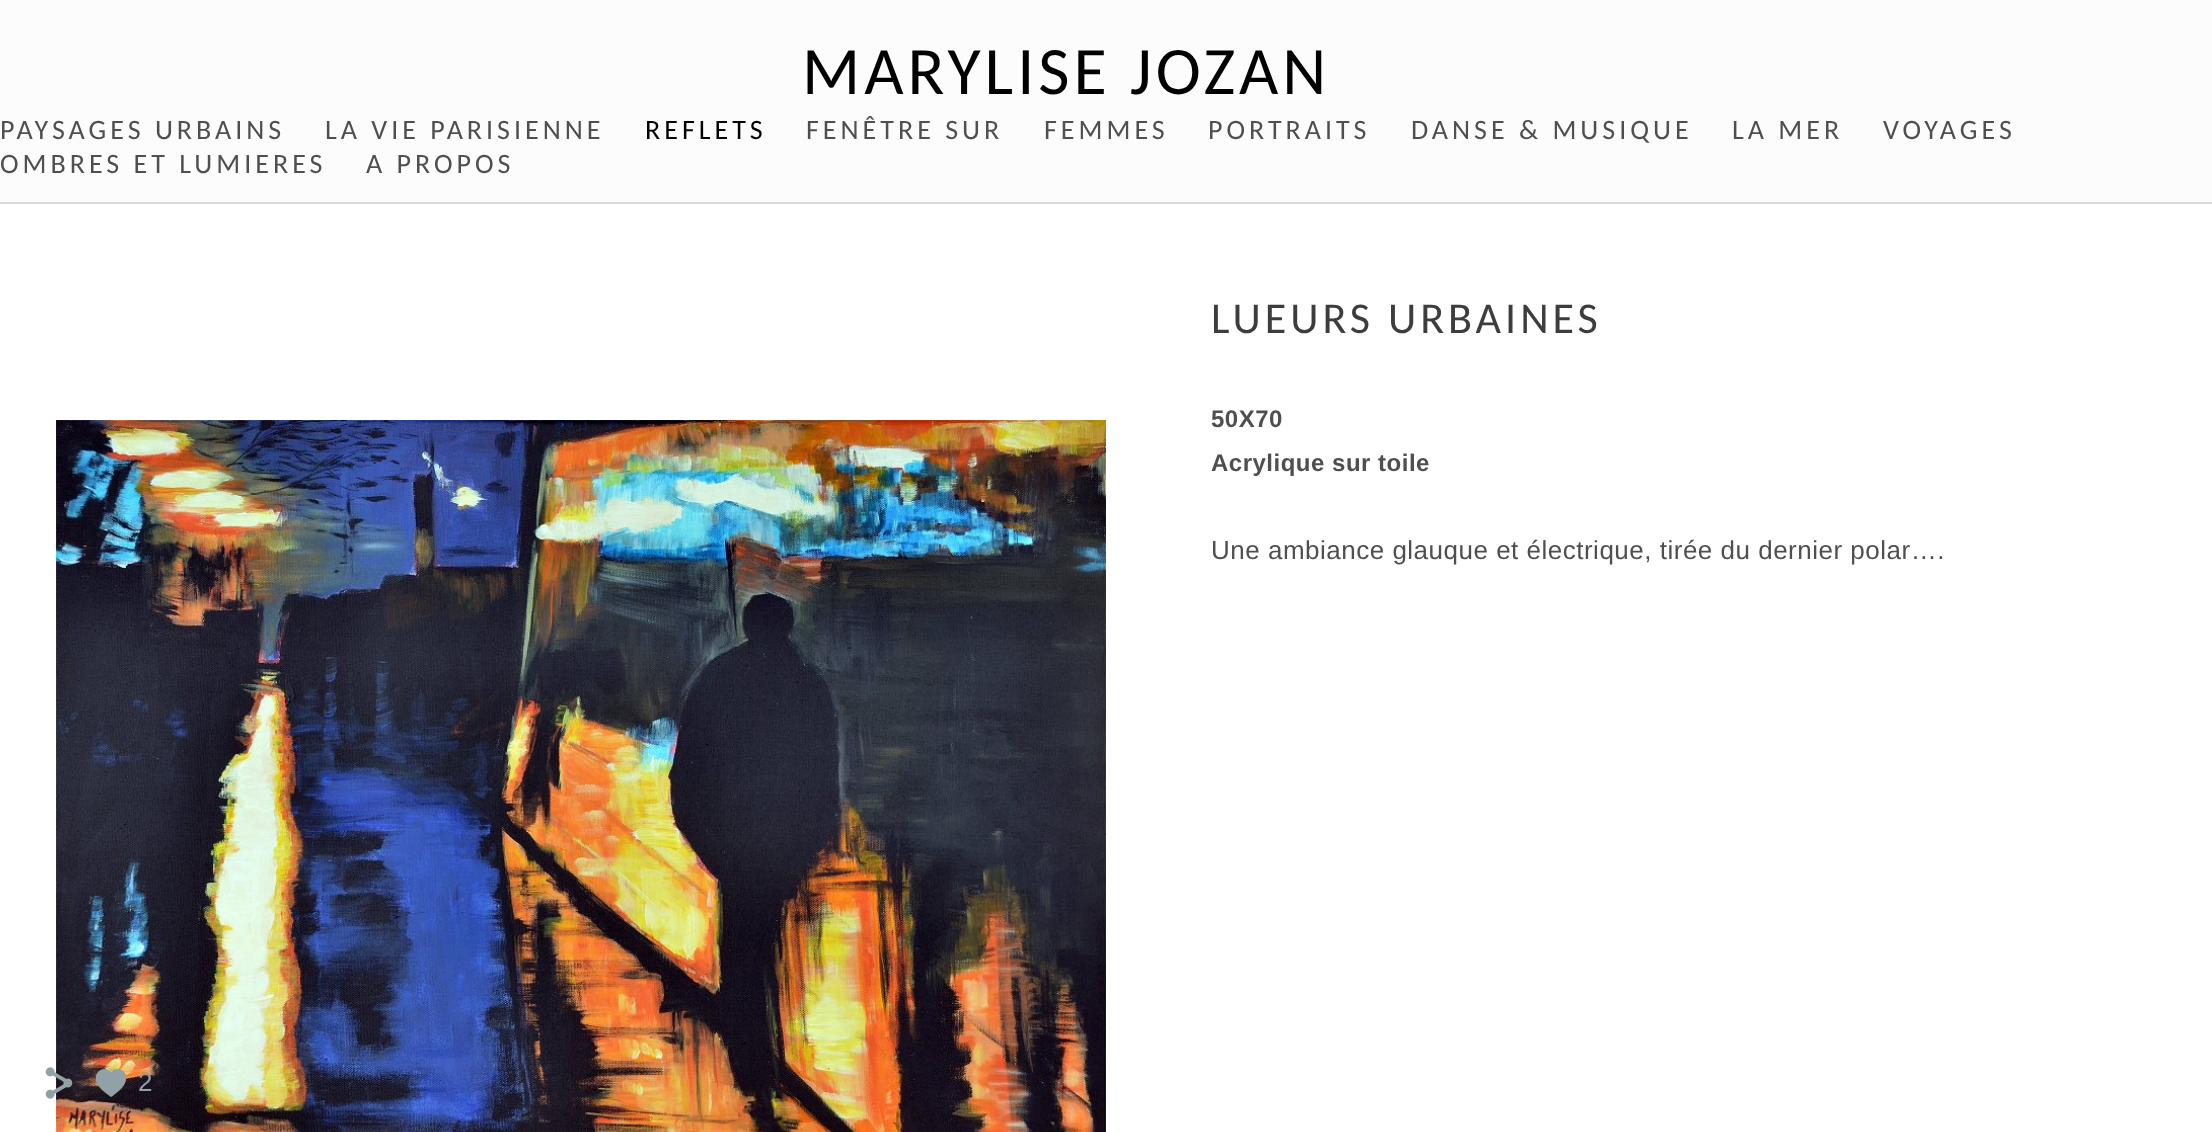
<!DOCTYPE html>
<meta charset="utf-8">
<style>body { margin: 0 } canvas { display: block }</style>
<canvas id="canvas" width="2212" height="1132"></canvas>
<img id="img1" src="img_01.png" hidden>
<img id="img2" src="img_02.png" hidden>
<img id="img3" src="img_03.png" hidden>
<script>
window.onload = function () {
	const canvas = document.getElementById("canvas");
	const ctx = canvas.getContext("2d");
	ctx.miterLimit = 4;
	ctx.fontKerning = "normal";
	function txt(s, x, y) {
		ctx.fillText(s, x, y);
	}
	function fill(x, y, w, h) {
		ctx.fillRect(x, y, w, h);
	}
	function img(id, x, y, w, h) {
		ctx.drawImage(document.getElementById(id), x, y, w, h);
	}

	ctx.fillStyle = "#FFFFFF";
	fill(0, 0, 2212, 1132);
	ctx.fillStyle = "#FCFCFC";
	fill(0, 0, 2212, 202);
	ctx.fillStyle = "#D9D9D9";
	fill(0, 202, 2212, 2);
	img("img1", 56, 420, 1050, 712);
	img("img2", 45, 1067, 28, 32);
	img("img3", 95, 1069, 32, 28);
	ctx.letterSpacing = "4px";
	ctx.font = "68px Carlito";
	ctx.fillStyle = "#000000";
	txt("MARYLISE JOZAN", 802, 94);
	ctx.font = "28px Carlito";
	ctx.fillStyle = "#4F4F4F";
	txt("PAYSAGES URBAINS", 0, 139);
	txt("LA VIE PARISIENNE", 325, 139);
	ctx.fillStyle = "#000000";
	txt("REFLETS", 645, 139);
	ctx.fillStyle = "#4F4F4F";
	txt("FENÊTRE SUR", 806, 139);
	txt("FEMMES", 1044, 139);
	txt("PORTRAITS", 1208, 139);
	txt("DANSE & MUSIQUE", 1411, 139);
	txt("LA MER", 1732, 139);
	txt("VOYAGES", 1883, 139);
	txt("OMBRES ET LUMIERES", 0, 173);
	txt("A PROPOS", 366, 173);
	ctx.font = "44px Carlito";
	ctx.fillStyle = "#3D3D3D";
	txt("LUEURS URBAINES", 1211, 333);
	ctx.letterSpacing = "0.5px";
	ctx.font = "bold 24px Liberation Sans";
	ctx.fillStyle = "#4F4F4F";
	txt("50X70", 1211, 427);
	txt("Acrylique sur toile", 1211, 471);
	ctx.font = "26px Liberation Sans";
	txt("Une ambiance glauque et électrique, tirée du dernier polar….", 1211, 559);
	ctx.letterSpacing = "0px";
	ctx.fillStyle = "#91A1A6";
	txt("2", 138, 1091);
};
</script>
